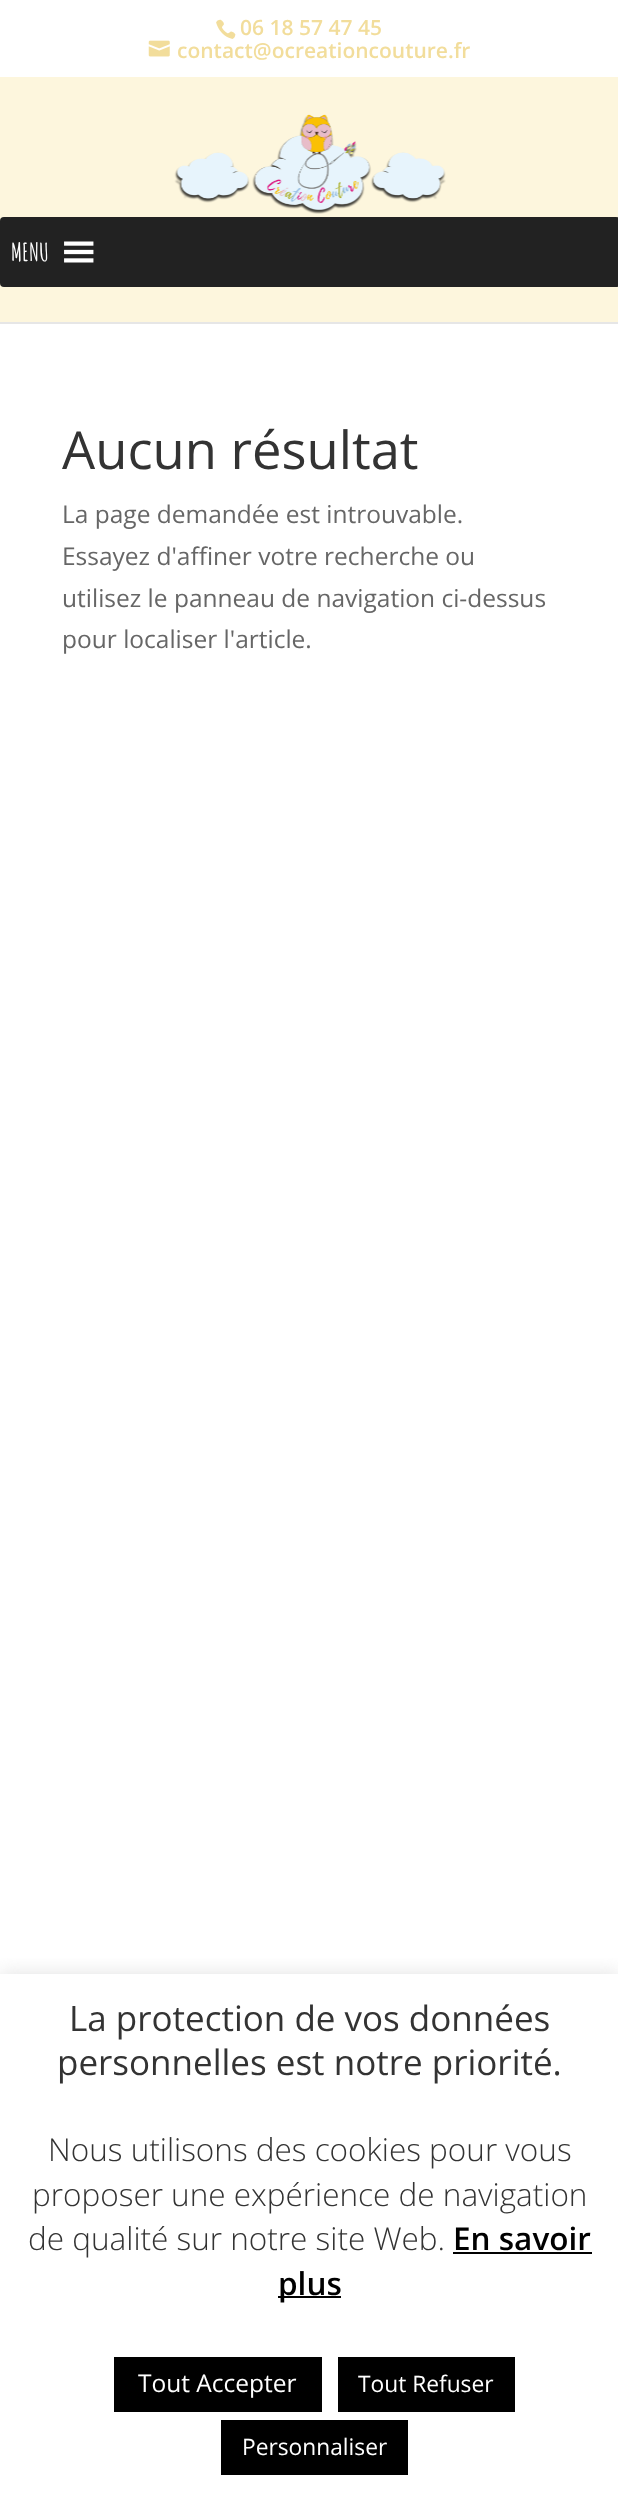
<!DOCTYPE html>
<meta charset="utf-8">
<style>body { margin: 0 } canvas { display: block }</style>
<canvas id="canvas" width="618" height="2494"></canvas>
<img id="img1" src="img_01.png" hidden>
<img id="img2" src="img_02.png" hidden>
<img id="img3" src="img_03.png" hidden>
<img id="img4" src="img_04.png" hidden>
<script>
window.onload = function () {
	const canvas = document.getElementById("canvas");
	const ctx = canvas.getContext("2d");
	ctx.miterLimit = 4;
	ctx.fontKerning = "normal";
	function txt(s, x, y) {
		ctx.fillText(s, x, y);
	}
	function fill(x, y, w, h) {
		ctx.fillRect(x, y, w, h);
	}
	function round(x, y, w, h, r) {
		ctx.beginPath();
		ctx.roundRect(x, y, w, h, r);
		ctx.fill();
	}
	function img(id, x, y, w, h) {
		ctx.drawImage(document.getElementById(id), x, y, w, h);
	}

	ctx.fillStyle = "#FFFFFF";
	fill(0, 0, 618, 2494);
	img("img1", 216, 19, 20, 20);
	img("img2", 148, 40, 22, 17);
	ctx.fillStyle = "#E6E6E6";
	ctx.beginPath();
	ctx.moveTo(0, 322);
	ctx.lineTo(0, 324);
	ctx.lineTo(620, 324);
	ctx.lineTo(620, 79);
	ctx.lineTo(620, 322);
	ctx.closePath();
	ctx.fill();
	ctx.fillStyle = "#FDF6DD";
	fill(0, 77, 618, 245);
	img("img3", 174, 114, 272, 100);
	ctx.fillStyle = "#222222";
	round(0, 217, 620, 70, 4);
	img("img4", 64, 241, 30, 22);
	ctx.save();
	ctx.beginPath();
	ctx.rect(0, 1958, 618, 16);
	ctx.clip();
	ctx.fillStyle = "rgba(172, 171, 171, 0.3)";
	ctx.filter = "blur(9px)";
	ctx.beginPath();
	ctx.rect(0, 1972, 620, 522);
	ctx.fill();
	ctx.filter = "none";
	ctx.restore();
	ctx.fillStyle = "#000000";
	fill(453, 2252, 139, 2);
	fill(278, 2296, 63, 2);
	fill(114, 2357, 208, 55);
	fill(338, 2357, 177, 55);
	fill(221, 2420, 187, 55);
	ctx.font = "600 21px Open Sans";
	ctx.fillStyle = "#F2DD9B";
	txt("06 18 57 47 45", 240, 35);
	txt("contact@ocreationcouture.fr", 177, 58);
	ctx.font = "bold 24.5px Amatic SC";
	ctx.fillStyle = "#FFFFFF";
	txt("MENU", 11, 261);
	ctx.font = "52.5px Open Sans";
	ctx.fillStyle = "#333333";
	txt("Aucun résultat", 62, 469);
	ctx.font = "24.5px Open Sans";
	ctx.fillStyle = "#666666";
	txt("La page demandée est introuvable.", 62, 523);
	txt("Essayez d'affiner votre recherche ou", 62, 565);
	txt("utilisez le panneau de navigation ci-dessus", 62, 607);
	txt("pour localiser l'article.", 62, 648);
	ctx.font = "35px Open Sans";
	ctx.fillStyle = "#333333";
	txt("La protection de vos données", 69, 2031);
	txt("personnelles est notre priorité.", 57, 2075);
	ctx.font = "300 31.5px Open Sans";
	txt("Nous utilisons des cookies pour vous", 48, 2161);
	txt("proposer une expérience de navigation", 32, 2206);
	txt("de qualité sur notre site Web.", 28, 2250);
	ctx.font = "600 31.5px Open Sans";
	ctx.fillStyle = "#000000";
	txt("En savoir", 453, 2250);
	txt("plus", 278, 2295);
	ctx.font = "24.5px Open Sans";
	ctx.fillStyle = "#FFFFFF";
	txt("Tout Accepter", 138, 2392);
	ctx.font = "22.75px Open Sans";
	txt("Tout Refuser", 358, 2392);
	txt("Personnaliser", 242, 2455);
};
</script>
